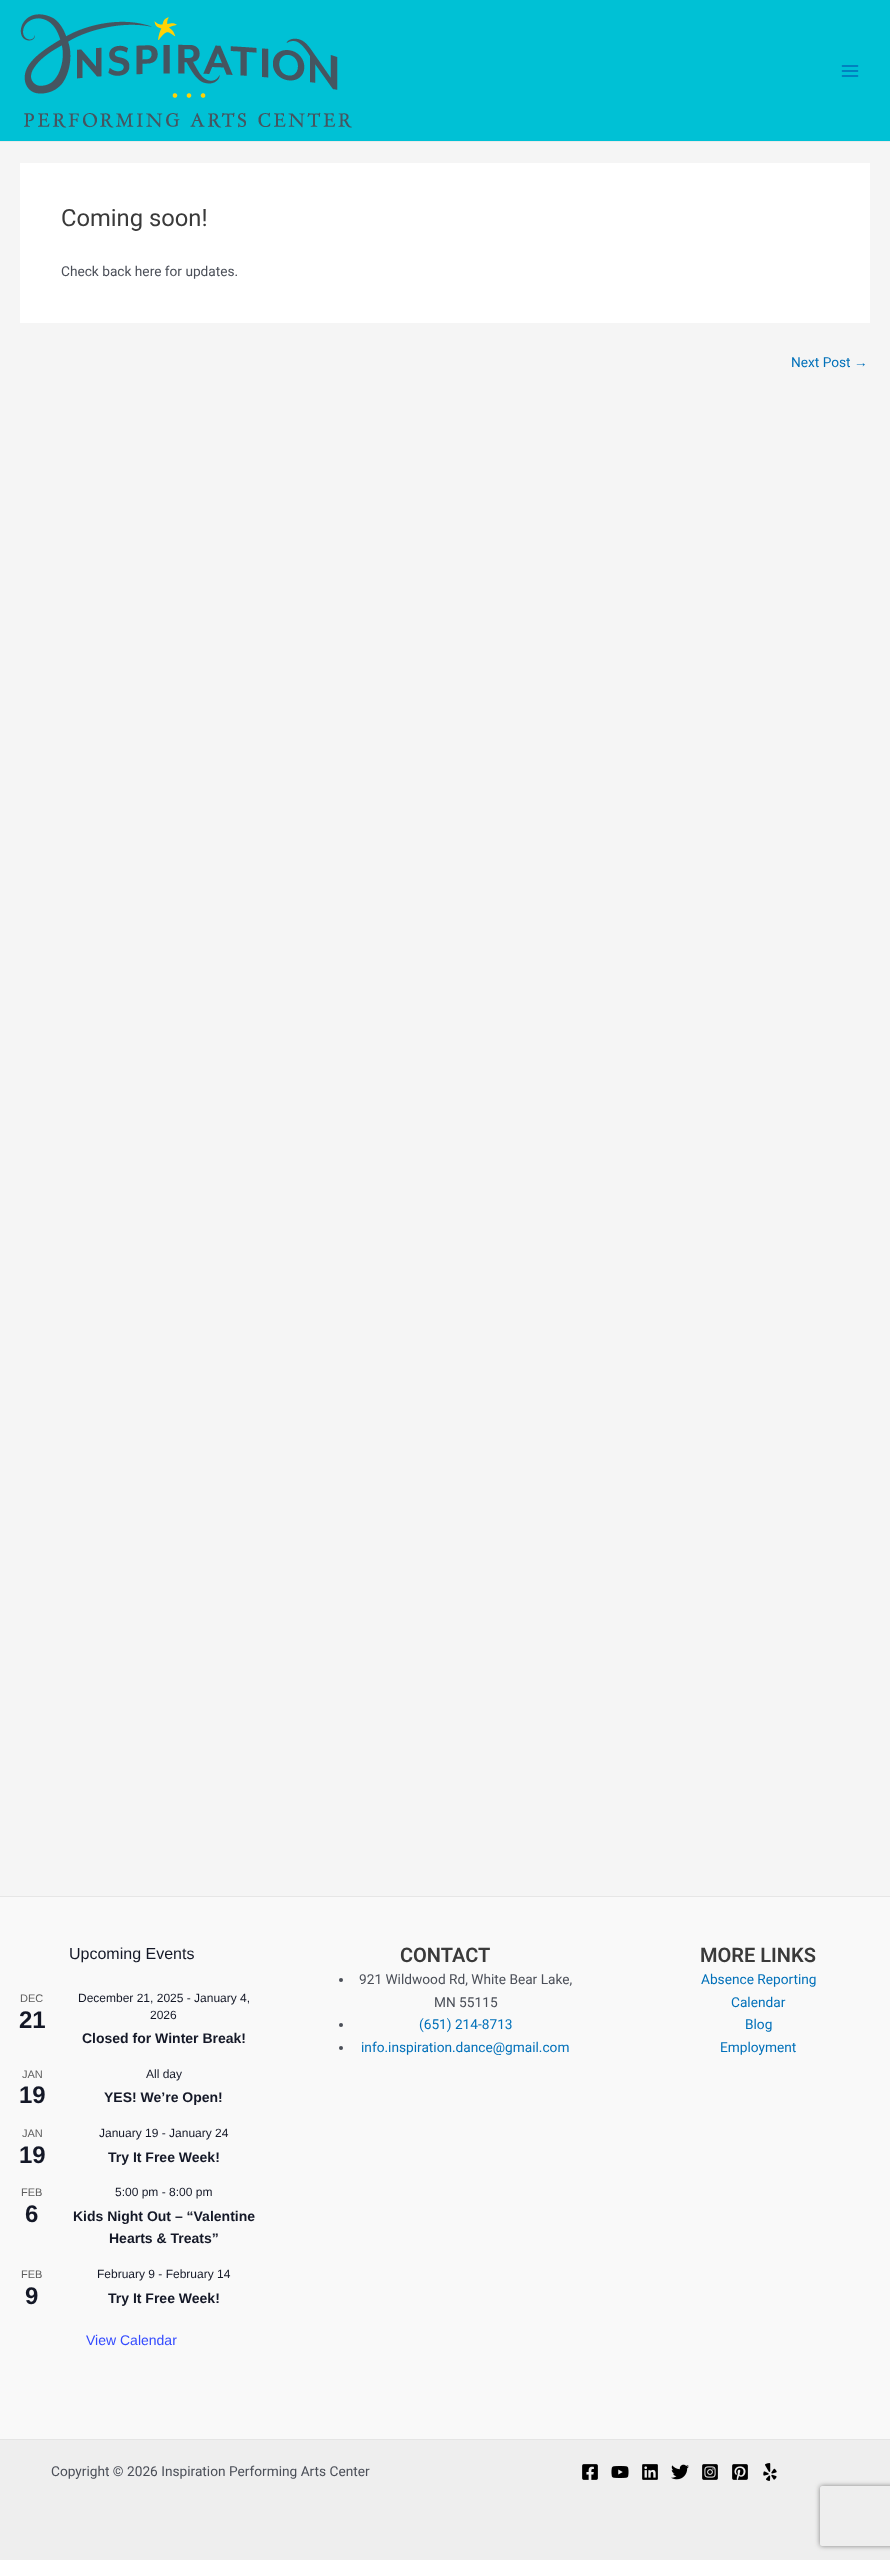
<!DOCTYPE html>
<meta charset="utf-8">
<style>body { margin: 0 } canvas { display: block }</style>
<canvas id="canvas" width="890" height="2560"></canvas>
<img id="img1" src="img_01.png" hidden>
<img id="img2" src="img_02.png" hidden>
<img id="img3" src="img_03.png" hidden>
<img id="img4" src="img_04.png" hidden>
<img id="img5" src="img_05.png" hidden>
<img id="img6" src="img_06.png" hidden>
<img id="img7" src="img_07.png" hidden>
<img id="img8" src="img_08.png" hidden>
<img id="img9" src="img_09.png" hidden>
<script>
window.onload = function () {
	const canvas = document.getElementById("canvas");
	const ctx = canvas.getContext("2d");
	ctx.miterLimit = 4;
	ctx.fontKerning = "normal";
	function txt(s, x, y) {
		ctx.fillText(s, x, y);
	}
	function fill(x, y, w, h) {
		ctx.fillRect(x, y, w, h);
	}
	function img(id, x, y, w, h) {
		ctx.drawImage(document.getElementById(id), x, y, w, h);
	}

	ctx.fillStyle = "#F5F5F5";
	fill(0, 0, 890, 2560);
	ctx.fillStyle = "#00C1D5";
	fill(0, 0, 890, 141);
	ctx.fillStyle = "#EAEAEA";
	fill(0, 141, 890, 1);
	img("img1", 20, 14, 332, 114);
	img("img2", 841, 65, 18, 12);
	ctx.fillStyle = "#FFFFFF";
	fill(20, 163, 850, 160);
	ctx.fillStyle = "#F9F9F9";
	fill(0, 1897, 890, 542);
	ctx.fillStyle = "#E6E6E6";
	fill(0, 1896, 890, 1);
	ctx.fillStyle = "#4B4F58";
	ctx.beginPath();
	ctx.arc(341, 1980, 2, 0, Math.PI * 2);
	ctx.fill();
	ctx.beginPath();
	ctx.arc(341, 2025, 2, 0, Math.PI * 2);
	ctx.fill();
	ctx.beginPath();
	ctx.arc(341, 2048, 2, 0, Math.PI * 2);
	ctx.fill();
	ctx.fillStyle = "#EEEEEE";
	fill(0, 2440, 890, 120);
	ctx.fillStyle = "#E5E5E5";
	fill(0, 2439, 890, 1);
	img("img3", 582, 2464, 16, 16);
	img("img4", 611, 2466, 18, 12);
	img("img5", 642, 2464, 16, 16);
	img("img6", 671, 2464, 18, 16);
	img("img7", 702, 2464, 16, 16);
	img("img8", 732, 2464, 16, 16);
	img("img9", 763, 2463, 14, 18);
	ctx.save();
	ctx.beginPath();
	ctx.moveTo(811, 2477);
	ctx.lineTo(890, 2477);
	ctx.lineTo(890, 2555);
	ctx.lineTo(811, 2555);
	ctx.closePath();
	ctx.moveTo(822, 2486);
	ctx.lineTo(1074, 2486);
	ctx.bezierCurveTo(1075, 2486, 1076, 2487, 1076, 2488);
	ctx.lineTo(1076, 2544);
	ctx.bezierCurveTo(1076, 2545, 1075, 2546, 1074, 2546);
	ctx.lineTo(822, 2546);
	ctx.bezierCurveTo(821, 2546, 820, 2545, 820, 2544);
	ctx.lineTo(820, 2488);
	ctx.bezierCurveTo(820, 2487, 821, 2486, 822, 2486);
	ctx.closePath();
	ctx.clip("evenodd");
	ctx.fillStyle = "#808080";
	ctx.filter = "blur(2.5px)";
	ctx.beginPath();
	ctx.roundRect(820, 2486, 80, 60, 2);
	ctx.fill();
	ctx.filter = "none";
	ctx.restore();
	ctx.font = "23.75px Roboto";
	ctx.fillStyle = "#3A3A3A";
	txt("Coming soon!", 61, 226);
	ctx.font = "13.7px Roboto";
	ctx.fillStyle = "#4B4F58";
	txt("Check back here for updates.", 61, 276);
	ctx.fillStyle = "#0170B9";
	txt("Next Post", 791, 367);
	ctx.font = "13.7px Liberation Sans";
	txt("→", 854, 367);
	ctx.font = "16px Liberation Sans";
	ctx.fillStyle = "#141827";
	txt("Upcoming Events", 69, 1959);
	ctx.font = "11px Liberation Sans";
	ctx.fillStyle = "#5D5D5D";
	txt("DEC", 20, 2002);
	ctx.font = "bold 24px Liberation Sans";
	ctx.fillStyle = "#141827";
	txt("21", 19, 2028);
	ctx.font = "12px Liberation Sans";
	txt("December 21, 2025 - January 4,", 78, 2002);
	txt("2026", 150, 2019);
	ctx.font = "bold 14px Liberation Sans";
	txt("Closed for Winter Break!", 82, 2043);
	ctx.font = "11px Liberation Sans";
	ctx.fillStyle = "#5D5D5D";
	txt("JAN", 22, 2078);
	ctx.font = "bold 24px Liberation Sans";
	ctx.fillStyle = "#141827";
	txt("19", 19, 2103);
	ctx.font = "12px Liberation Sans";
	txt("All day", 146, 2078);
	ctx.font = "bold 14px Liberation Sans";
	txt("YES! We’re Open!", 104, 2102);
	ctx.font = "11px Liberation Sans";
	ctx.fillStyle = "#5D5D5D";
	txt("JAN", 22, 2137);
	ctx.font = "bold 24px Liberation Sans";
	ctx.fillStyle = "#141827";
	txt("19", 19, 2163);
	ctx.font = "12px Liberation Sans";
	txt("January 19 - January 24", 99, 2137);
	ctx.font = "bold 14px Liberation Sans";
	txt("Try It Free Week!", 108, 2162);
	ctx.font = "11px Liberation Sans";
	ctx.fillStyle = "#5D5D5D";
	txt("FEB", 21, 2196);
	ctx.font = "bold 24px Liberation Sans";
	ctx.fillStyle = "#141827";
	txt("6", 25, 2222);
	ctx.font = "12px Liberation Sans";
	txt("5:00 pm - 8:00 pm", 115, 2196);
	ctx.font = "bold 14px Liberation Sans";
	txt("Kids Night Out – “Valentine", 73, 2221);
	txt("Hearts & Treats”", 109, 2243);
	ctx.font = "11px Liberation Sans";
	ctx.fillStyle = "#5D5D5D";
	txt("FEB", 21, 2278);
	ctx.font = "bold 24px Liberation Sans";
	ctx.fillStyle = "#141827";
	txt("9", 25, 2304);
	ctx.font = "12px Liberation Sans";
	txt("February 9 - February 14", 97, 2278);
	ctx.font = "bold 14px Liberation Sans";
	txt("Try It Free Week!", 108, 2303);
	ctx.font = "14px Liberation Sans";
	ctx.fillStyle = "#334AFF";
	txt("View Calendar", 86, 2345);
	ctx.font = "600 20px Roboto";
	ctx.fillStyle = "#3A3A3A";
	txt("CONTACT", 400, 1962);
	ctx.font = "13.7px Roboto";
	ctx.fillStyle = "#4B4F58";
	txt("921 Wildwood Rd, White Bear Lake,", 359, 1984);
	txt("MN 55115", 434, 2007);
	ctx.fillStyle = "#0170B9";
	txt("(651) 214-8713", 419, 2029);
	txt("info.inspiration.dance@gmail.com", 361, 2052);
	ctx.font = "600 20px Roboto";
	ctx.fillStyle = "#3A3A3A";
	txt("MORE LINKS", 700, 1962);
	ctx.font = "13.7px Roboto";
	ctx.fillStyle = "#0170B9";
	txt("Absence Reporting", 701, 1984);
	txt("Calendar", 731, 2007);
	txt("Blog", 745, 2029);
	txt("Employment", 720, 2052);
	ctx.fillStyle = "#4B4F58";
	txt("Copyright © 2026 Inspiration Performing Arts Center", 51, 2476);
};
</script>
